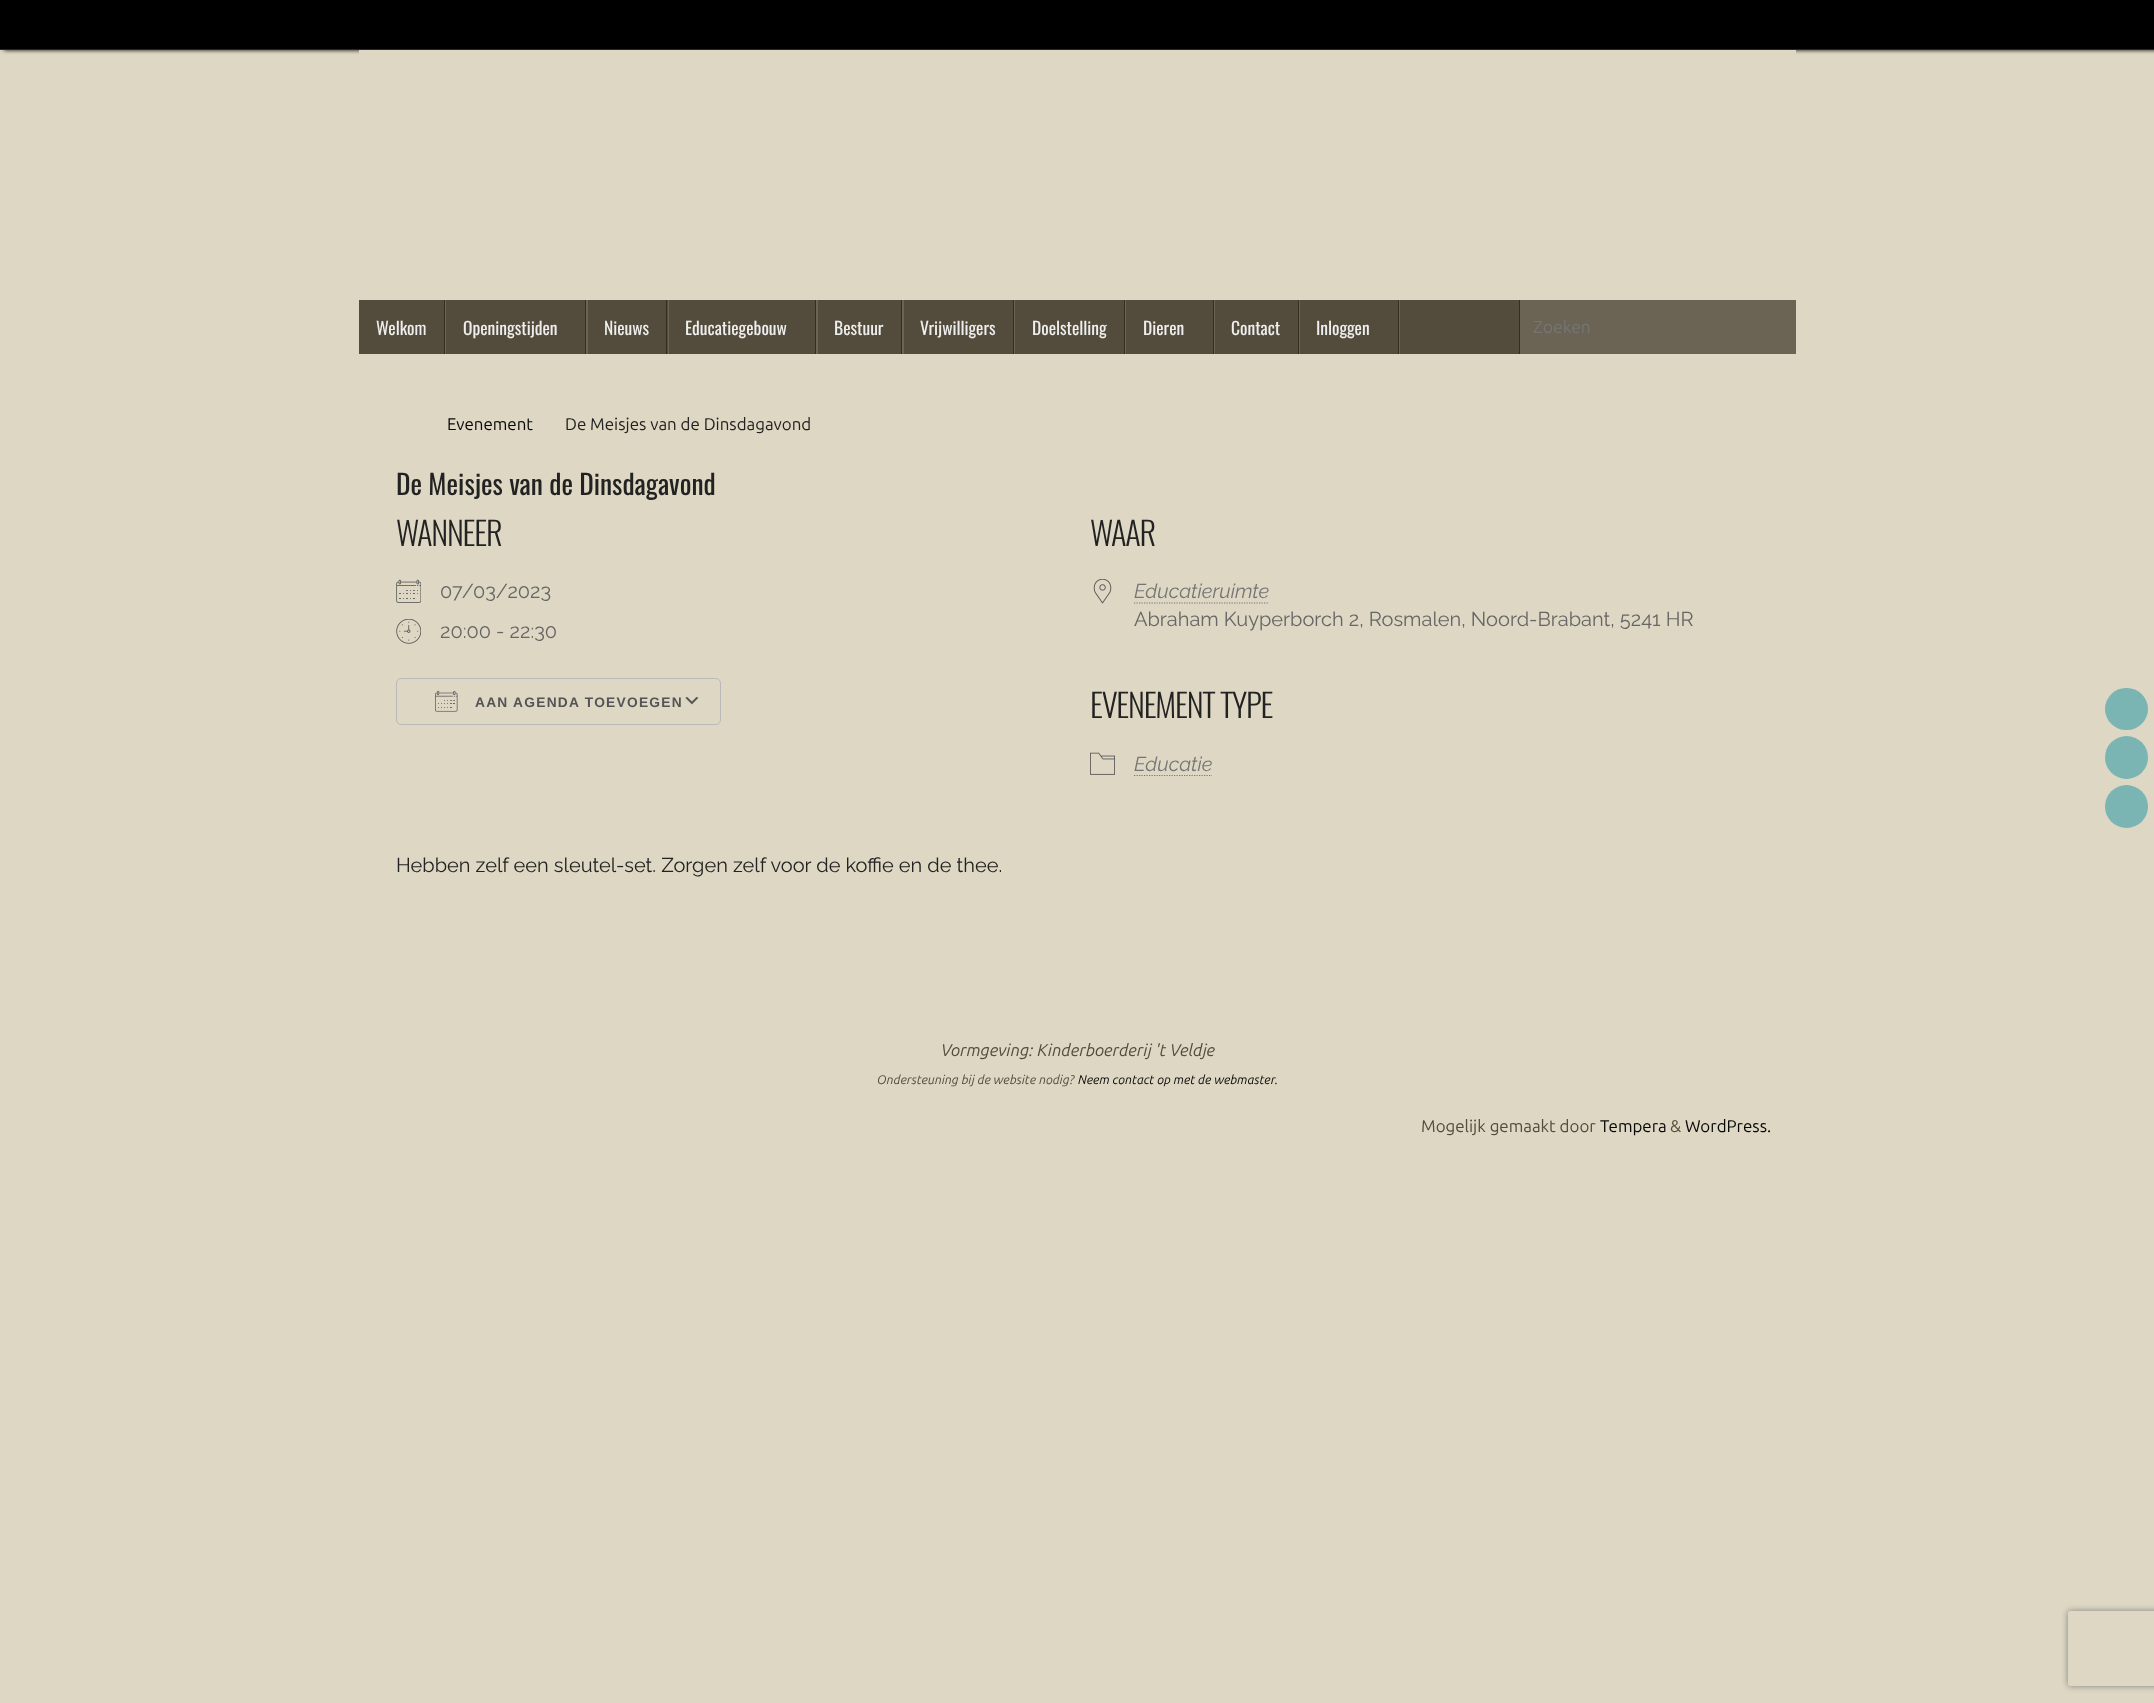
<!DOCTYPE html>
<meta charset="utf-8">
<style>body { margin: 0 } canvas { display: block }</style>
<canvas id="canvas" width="2154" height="1703"></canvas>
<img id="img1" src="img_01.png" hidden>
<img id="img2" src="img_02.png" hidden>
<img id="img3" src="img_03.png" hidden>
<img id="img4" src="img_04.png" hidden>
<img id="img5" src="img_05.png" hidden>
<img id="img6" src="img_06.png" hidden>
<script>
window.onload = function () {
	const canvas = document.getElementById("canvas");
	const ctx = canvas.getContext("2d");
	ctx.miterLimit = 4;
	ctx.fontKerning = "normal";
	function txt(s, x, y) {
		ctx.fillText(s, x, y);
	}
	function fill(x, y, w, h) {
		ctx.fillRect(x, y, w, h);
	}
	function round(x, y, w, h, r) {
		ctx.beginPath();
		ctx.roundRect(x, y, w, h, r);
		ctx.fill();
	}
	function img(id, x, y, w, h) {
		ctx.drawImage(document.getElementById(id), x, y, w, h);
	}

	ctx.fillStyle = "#DDD7C3";
	fill(0, 0, 2154, 1703);
	ctx.fillStyle = "#000000";
	ctx.filter = "blur(2px)";
	ctx.beginPath();
	ctx.rect(4, 0, 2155, 50);
	ctx.fill();
	ctx.filter = "none";
	fill(0, 0, 2154, 49);
	ctx.fillStyle = "#282828";
	fill(0, 49, 2154, 1);
	ctx.fillStyle = "#DDD7C3";
	fill(359, 50, 1437, 4);
	ctx.fillStyle = "#534C3C";
	fill(359, 300, 1160, 54);
	ctx.fillStyle = "#6B6454";
	ctx.beginPath();
	ctx.moveTo(360, 354);
	ctx.lineTo(446, 354);
	ctx.lineTo(446, 300);
	ctx.lineTo(445, 300);
	ctx.lineTo(445, 354);
	ctx.closePath();
	ctx.fill();
	ctx.fillStyle = "#352E1E";
	fill(444, 300, 1, 54);
	ctx.fillStyle = "#6B6454";
	ctx.beginPath();
	ctx.moveTo(446, 354);
	ctx.lineTo(588, 354);
	ctx.lineTo(588, 300);
	ctx.lineTo(586, 300);
	ctx.lineTo(586, 354);
	ctx.closePath();
	ctx.fill();
	ctx.fillStyle = "#352E1E";
	fill(585, 300, 1, 54);
	ctx.fillStyle = "#6B6454";
	ctx.beginPath();
	ctx.moveTo(588, 354);
	ctx.lineTo(669, 354);
	ctx.lineTo(669, 300);
	ctx.lineTo(668, 300);
	ctx.lineTo(668, 354);
	ctx.closePath();
	ctx.fill();
	ctx.fillStyle = "#352E1E";
	fill(666, 300, 1, 54);
	ctx.fillStyle = "#6B6454";
	ctx.beginPath();
	ctx.moveTo(669, 354);
	ctx.lineTo(818, 354);
	ctx.lineTo(818, 300);
	ctx.lineTo(816, 300);
	ctx.lineTo(816, 354);
	ctx.closePath();
	ctx.fill();
	ctx.fillStyle = "#352E1E";
	fill(815, 300, 1, 54);
	ctx.fillStyle = "#6B6454";
	ctx.beginPath();
	ctx.moveTo(818, 354);
	ctx.lineTo(904, 354);
	ctx.lineTo(904, 300);
	ctx.lineTo(902, 300);
	ctx.lineTo(902, 354);
	ctx.closePath();
	ctx.fill();
	ctx.fillStyle = "#352E1E";
	fill(901, 300, 1, 54);
	ctx.fillStyle = "#6B6454";
	ctx.beginPath();
	ctx.moveTo(904, 354);
	ctx.lineTo(1015, 354);
	ctx.lineTo(1015, 300);
	ctx.lineTo(1014, 300);
	ctx.lineTo(1014, 354);
	ctx.closePath();
	ctx.fill();
	ctx.fillStyle = "#352E1E";
	fill(1013, 300, 1, 54);
	ctx.fillStyle = "#6B6454";
	ctx.beginPath();
	ctx.moveTo(1015, 354);
	ctx.lineTo(1126, 354);
	ctx.lineTo(1126, 300);
	ctx.lineTo(1125, 300);
	ctx.lineTo(1125, 354);
	ctx.closePath();
	ctx.fill();
	ctx.fillStyle = "#352E1E";
	fill(1124, 300, 1, 54);
	ctx.fillStyle = "#6B6454";
	ctx.beginPath();
	ctx.moveTo(1126, 354);
	ctx.lineTo(1215, 354);
	ctx.lineTo(1215, 300);
	ctx.lineTo(1214, 300);
	ctx.lineTo(1214, 354);
	ctx.closePath();
	ctx.fill();
	ctx.fillStyle = "#352E1E";
	fill(1213, 300, 1, 54);
	ctx.fillStyle = "#6B6454";
	ctx.beginPath();
	ctx.moveTo(1215, 354);
	ctx.lineTo(1300, 354);
	ctx.lineTo(1300, 300);
	ctx.lineTo(1299, 300);
	ctx.lineTo(1299, 354);
	ctx.closePath();
	ctx.fill();
	ctx.fillStyle = "#352E1E";
	fill(1298, 300, 1, 54);
	ctx.fillStyle = "#6B6454";
	ctx.beginPath();
	ctx.moveTo(1300, 354);
	ctx.lineTo(1400, 354);
	ctx.lineTo(1400, 300);
	ctx.lineTo(1399, 300);
	ctx.lineTo(1399, 354);
	ctx.closePath();
	ctx.fill();
	ctx.fillStyle = "#352E1E";
	fill(1398, 300, 1, 54);
	ctx.fillStyle = "#6B6454";
	fill(1520, 300, 276, 54);
	ctx.fillStyle = "#352E1E";
	fill(1519, 300, 1, 54);
	img("img1", 396, 579, 25, 24);
	img("img2", 396, 619, 25, 25);
	img("img3", 685, 697, 14, 8);
	ctx.beginPath();
	ctx.roundRect(396.5, 678.5, 324, 46, 4.5);
	ctx.strokeStyle = "#BABABA";
	ctx.stroke();
	img("img4", 435, 690, 23, 22);
	img("img5", 1093, 579, 19, 25);
	ctx.beginPath();
	ctx.moveTo(1134, 603);
	ctx.lineTo(1269, 603);
	ctx.strokeStyle = "#787878";
	ctx.lineWidth = 1.2;
	ctx.setLineDash([1.25, 1.25]);
	ctx.stroke();
	img("img6", 1090, 752, 25, 23);
	ctx.beginPath();
	ctx.moveTo(1134, 775.5);
	ctx.lineTo(1212, 775.5);
	ctx.stroke();
	ctx.fillStyle = "#7AB5B4";
	round(2105, 688, 43, 42, 21);
	ctx.beginPath();
	ctx.arc(2126.5, 757.5, 21.5, 0, Math.PI * 2);
	ctx.fill();
	ctx.beginPath();
	ctx.arc(2126.5, 806.5, 21.5, 0, Math.PI * 2);
	ctx.fill();
	ctx.save();
	ctx.beginPath();
	ctx.moveTo(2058, 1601);
	ctx.lineTo(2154, 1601);
	ctx.lineTo(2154, 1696);
	ctx.lineTo(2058, 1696);
	ctx.closePath();
	ctx.moveTo(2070.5, 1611);
	ctx.lineTo(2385.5, 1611);
	ctx.bezierCurveTo(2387, 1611, 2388, 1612, 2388, 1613.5);
	ctx.lineTo(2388, 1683.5);
	ctx.bezierCurveTo(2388, 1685, 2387, 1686, 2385.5, 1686);
	ctx.lineTo(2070.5, 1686);
	ctx.bezierCurveTo(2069, 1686, 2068, 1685, 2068, 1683.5);
	ctx.lineTo(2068, 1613.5);
	ctx.bezierCurveTo(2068, 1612, 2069, 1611, 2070.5, 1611);
	ctx.closePath();
	ctx.clip("evenodd");
	ctx.fillStyle = "#808080";
	ctx.filter = "blur(3px)";
	ctx.beginPath();
	ctx.roundRect(2068, 1611, 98, 75, 2.5);
	ctx.fill();
	ctx.filter = "none";
	ctx.restore();
	ctx.font = "17.5px Oswald";
	ctx.fillStyle = "#EEEEEE";
	txt("Welkom", 376, 335);
	txt("Openingstijden", 463, 335);
	txt("Nieuws", 604, 335);
	txt("Educatiegebouw", 685, 335);
	txt("Bestuur", 834, 335);
	txt("Vrijwilligers", 920, 335);
	txt("Doelstelling", 1032, 335);
	txt("Dieren", 1143, 335);
	txt("Contact", 1231, 335);
	txt("Inloggen", 1316, 335);
	ctx.font = "17.5px Ubuntu";
	ctx.fillStyle = "#757575";
	txt("Zoeken", 1533, 333);
	ctx.font = "16.9px Ubuntu";
	ctx.fillStyle = "#070707";
	txt("Evenement", 447, 430);
	ctx.fillStyle = "#222222";
	txt("De Meisjes van de Dinsdagavond", 565, 430);
	ctx.font = "27.5px Oswald";
	txt("De Meisjes van de Dinsdagavond", 396, 495);
	ctx.letterSpacing = "-1.25px";
	ctx.font = "300 32.5px Oswald";
	txt("WANNEER", 396, 546);
	ctx.letterSpacing = "0px";
	ctx.font = "20px Raleway";
	ctx.fillStyle = "#666666";
	txt("07/03/2023", 440, 598);
	txt("20:00 - 22:30", 440, 638);
	ctx.letterSpacing = "1.25px";
	ctx.font = "bold 13.75px Liberation Sans";
	ctx.fillStyle = "#545454";
	txt("AAN AGENDA TOEVOEGEN", 475, 707);
	ctx.letterSpacing = "-1.25px";
	ctx.font = "300 32.5px Oswald";
	ctx.fillStyle = "#222222";
	txt("WAAR", 1090, 546);
	ctx.letterSpacing = "0px";
	ctx.font = "italic 20px Raleway";
	ctx.fillStyle = "#757575";
	txt("Educatieruimte", 1134, 598);
	ctx.font = "20px Raleway";
	ctx.fillStyle = "#666666";
	txt("Abraham Kuyperborch 2, Rosmalen, Noord-Brabant, 5241 HR", 1134, 626);
	ctx.letterSpacing = "-1.25px";
	ctx.font = "300 32.5px Oswald";
	ctx.fillStyle = "#222222";
	txt("EVENEMENT TYPE", 1090, 718);
	ctx.letterSpacing = "0px";
	ctx.font = "italic 20px Raleway";
	ctx.fillStyle = "#757575";
	txt("Educatie", 1134, 771);
	ctx.font = "20px Raleway";
	ctx.fillStyle = "#222222";
	txt("Hebben zelf een sleutel-set. Zorgen zelf voor de koffie en de thee.", 396, 872);
	ctx.font = "italic 16.9px Ubuntu";
	ctx.fillStyle = "#534C3C";
	txt("Vormgeving: Kinderboerderij 't Veldje", 941, 1056);
	ctx.font = "italic 12.5px Ubuntu";
	txt("Ondersteuning bij de website nodig?", 877, 1084);
	ctx.fillStyle = "#070707";
	txt("Neem contact op met de webmaster.", 1078, 1084);
	ctx.font = "16.9px Ubuntu";
	ctx.fillStyle = "#534C3C";
	txt("Mogelijk gemaakt door", 1421, 1132);
	ctx.fillStyle = "#070707";
	txt("Tempera", 1600, 1132);
	ctx.fillStyle = "#534C3C";
	txt("&", 1670, 1132);
	ctx.fillStyle = "#070707";
	txt("WordPress.", 1685, 1132);
};
</script>
